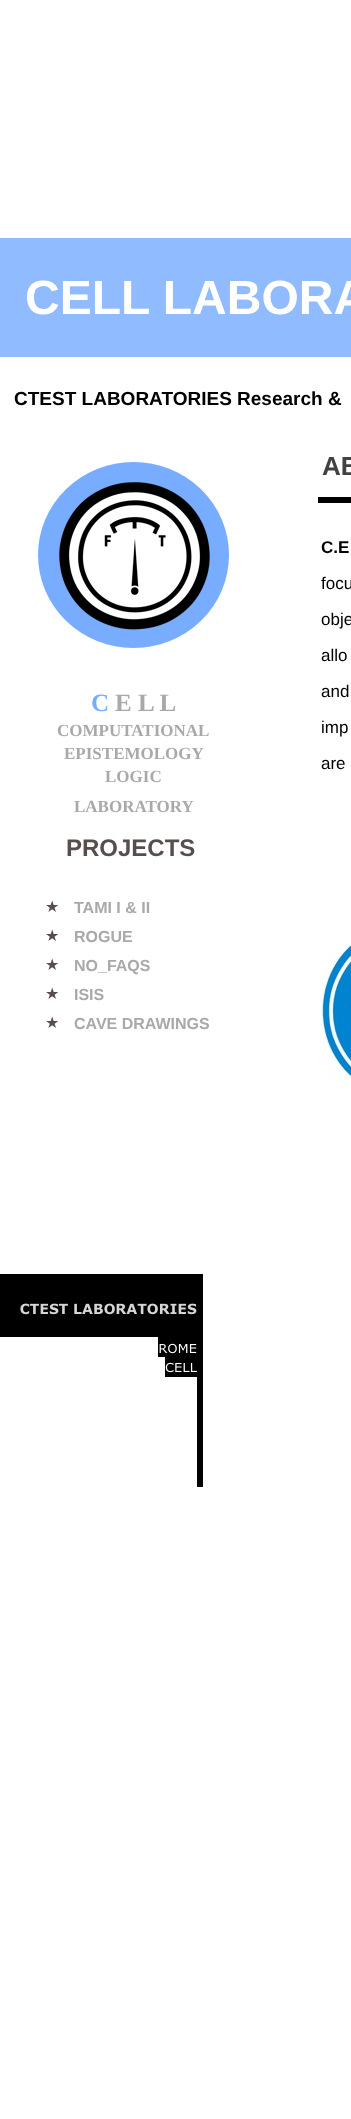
<!DOCTYPE html>
<meta charset="utf-8">
<style>body { margin: 0 } canvas { display: block }</style>
<canvas id="canvas" width="351" height="2119"></canvas>
<img id="img1" src="img_01.png" hidden>
<img id="img2" src="img_02.png" hidden>
<img id="img3" src="img_03.png" hidden>
<img id="img4" src="img_05.png" hidden>
<img id="img5" src="img_06.png" hidden>
<img id="img6" src="img_04.png" hidden>
<script>
window.onload = function () {
	const canvas = document.getElementById("canvas");
	const ctx = canvas.getContext("2d");
	ctx.miterLimit = 4;
	ctx.fontKerning = "normal";
	function txt(s, x, y) {
		ctx.fillText(s, x, y);
	}
	function fill(x, y, w, h) {
		ctx.fillRect(x, y, w, h);
	}
	function img(id, x, y, w, h) {
		ctx.drawImage(document.getElementById(id), x, y, w, h);
	}

	ctx.fillStyle = "#FFFFFF";
	fill(0, 0, 351, 2119);
	ctx.fillStyle = "#90BBFF";
	fill(0, 238, 351, 119);
	img("img1", 38, 462, 191, 186);
	img("img2", 59, 482, 151, 148);
	ctx.fillStyle = "#000000";
	fill(318, 497, 33, 6);
	img("img3", 320, 942, 31, 144);
	img("img4", 158, 1337, 39, 20);
	img("img5", 165, 1357, 32, 20);
	img("img6", 0, 1274, 203, 213);
	ctx.font = "bold 48px Liberation Sans";
	ctx.fillStyle = "#FFFFFF";
	txt("CELL LABORA", 25, 314);
	ctx.font = "bold 19px Liberation Sans";
	ctx.fillStyle = "#000000";
	txt("CTEST LABORATORIES Research &", 14, 405);
	ctx.font = "bold 26px Liberation Sans";
	ctx.fillStyle = "#424242";
	txt("AB", 322, 475);
	ctx.font = "bold 25px Liberation Serif";
	ctx.fillStyle = "#78ACFF";
	txt("C", 91, 711);
	ctx.fillStyle = "#A9A9A9";
	txt("E L L", 115, 711);
	ctx.font = "bold 17px Liberation Serif";
	txt("COMPUTATIONAL", 57, 736);
	txt("EPISTEMOLOGY", 64, 759);
	txt("LOGIC", 105, 782);
	txt("LABORATORY", 74, 812);
	ctx.font = "bold 17px Liberation Sans";
	ctx.fillStyle = "#000000";
	txt("C.E", 321, 553);
	ctx.font = "17px Liberation Sans";
	txt("focu", 321, 589);
	txt("obje", 321, 625);
	txt("allo", 321, 661);
	txt("and", 321, 697);
	txt("imp", 321, 733);
	txt("are", 321, 769);
	ctx.font = "bold 24px Liberation Sans";
	ctx.fillStyle = "#584D4D";
	txt("PROJECTS", 66, 856);
	ctx.font = "16px DejaVu Sans";
	txt("★", 45, 912);
	ctx.font = "bold 16px Liberation Sans";
	ctx.fillStyle = "#A9A9A9";
	txt("TAMI I & II", 74, 913);
	ctx.font = "16px DejaVu Sans";
	ctx.fillStyle = "#584D4D";
	txt("★", 45, 941);
	ctx.font = "bold 16px Liberation Sans";
	ctx.fillStyle = "#A9A9A9";
	txt("ROGUE", 74, 942);
	ctx.font = "16px DejaVu Sans";
	ctx.fillStyle = "#584D4D";
	txt("★", 45, 970);
	ctx.font = "bold 16px Liberation Sans";
	ctx.fillStyle = "#A9A9A9";
	txt("NO_FAQS", 74, 971);
	ctx.font = "16px DejaVu Sans";
	ctx.fillStyle = "#584D4D";
	txt("★", 45, 999);
	ctx.font = "bold 16px Liberation Sans";
	ctx.fillStyle = "#A9A9A9";
	txt("ISIS", 74, 1000);
	ctx.font = "16px DejaVu Sans";
	ctx.fillStyle = "#584D4D";
	txt("★", 45, 1028);
	ctx.font = "bold 16px Liberation Sans";
	ctx.fillStyle = "#A9A9A9";
	txt("CAVE DRAWINGS", 74, 1029);
};
</script>
